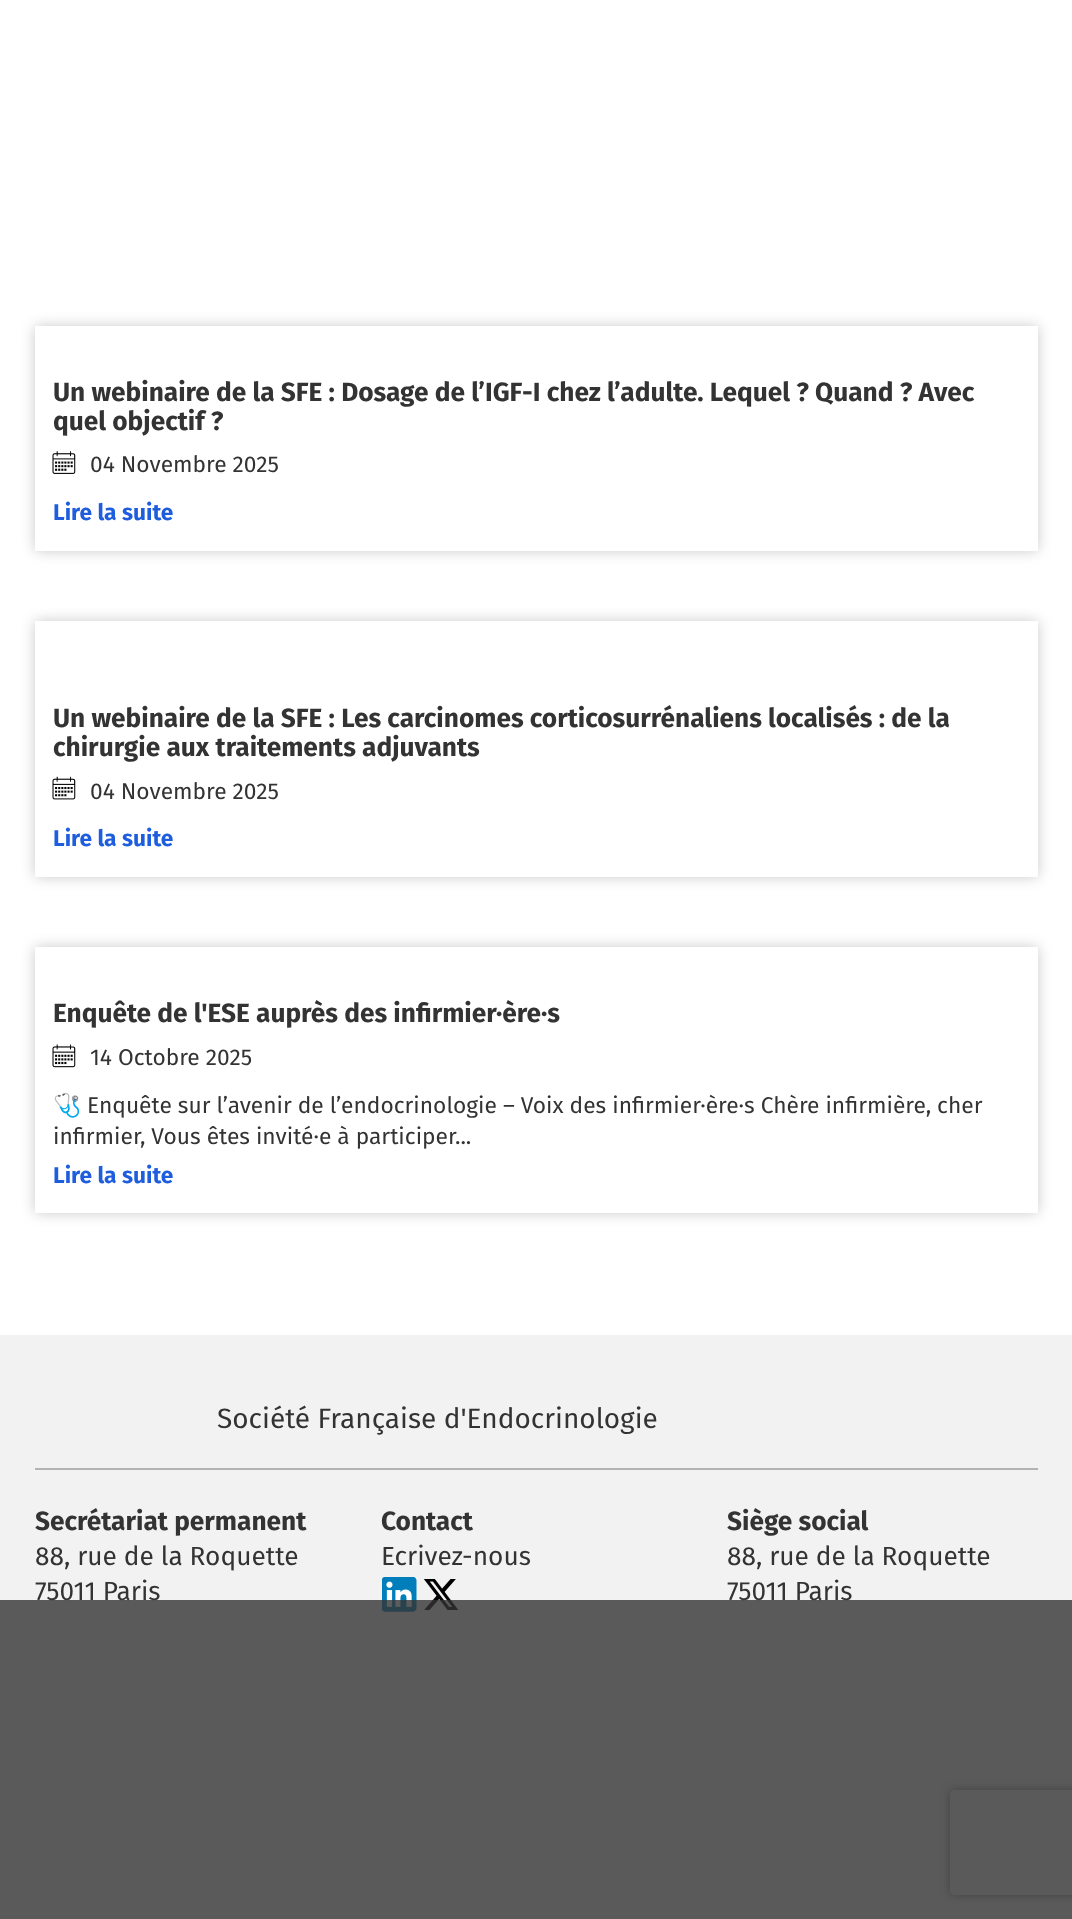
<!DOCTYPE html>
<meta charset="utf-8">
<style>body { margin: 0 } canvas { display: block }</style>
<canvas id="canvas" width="1072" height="1919"></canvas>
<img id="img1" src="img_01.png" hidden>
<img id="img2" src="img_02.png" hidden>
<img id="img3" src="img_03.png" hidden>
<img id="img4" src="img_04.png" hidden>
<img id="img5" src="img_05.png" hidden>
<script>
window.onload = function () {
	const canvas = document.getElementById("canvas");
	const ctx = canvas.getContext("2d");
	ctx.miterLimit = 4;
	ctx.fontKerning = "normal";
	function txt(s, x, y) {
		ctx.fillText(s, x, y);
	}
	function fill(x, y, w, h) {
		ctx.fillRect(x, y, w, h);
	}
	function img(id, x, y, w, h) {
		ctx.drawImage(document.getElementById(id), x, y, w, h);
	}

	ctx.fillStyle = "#FFFFFF";
	fill(0, 0, 1072, 1919);
	ctx.save();
	ctx.beginPath();
	ctx.moveTo(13, 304);
	ctx.lineTo(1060, 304);
	ctx.lineTo(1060, 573);
	ctx.lineTo(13, 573);
	ctx.closePath();
	ctx.moveTo(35, 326);
	ctx.lineTo(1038, 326);
	ctx.lineTo(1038, 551);
	ctx.lineTo(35, 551);
	ctx.closePath();
	ctx.clip("evenodd");
	ctx.fillStyle = "#CACACA";
	ctx.filter = "blur(7px)";
	ctx.beginPath();
	ctx.rect(35, 326, 1003, 225);
	ctx.fill();
	ctx.filter = "none";
	ctx.restore();
	img("img1", 52, 451, 24, 23);
	ctx.save();
	ctx.beginPath();
	ctx.moveTo(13, 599);
	ctx.lineTo(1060, 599);
	ctx.lineTo(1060, 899);
	ctx.lineTo(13, 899);
	ctx.closePath();
	ctx.moveTo(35, 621);
	ctx.lineTo(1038, 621);
	ctx.lineTo(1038, 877);
	ctx.lineTo(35, 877);
	ctx.closePath();
	ctx.clip("evenodd");
	ctx.fillStyle = "#CACACA";
	ctx.filter = "blur(7px)";
	ctx.beginPath();
	ctx.rect(35, 621, 1003, 256);
	ctx.fill();
	ctx.filter = "none";
	ctx.restore();
	img("img2", 52, 776, 24, 24);
	ctx.save();
	ctx.beginPath();
	ctx.moveTo(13, 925);
	ctx.lineTo(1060, 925);
	ctx.lineTo(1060, 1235);
	ctx.lineTo(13, 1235);
	ctx.closePath();
	ctx.moveTo(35, 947);
	ctx.lineTo(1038, 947);
	ctx.lineTo(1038, 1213);
	ctx.lineTo(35, 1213);
	ctx.closePath();
	ctx.clip("evenodd");
	ctx.fillStyle = "#CACACA";
	ctx.filter = "blur(7px)";
	ctx.beginPath();
	ctx.rect(35, 947, 1003, 266);
	ctx.fill();
	ctx.filter = "none";
	ctx.restore();
	img("img3", 52, 1044, 24, 24);
	ctx.fillStyle = "#F2F2F2";
	fill(0, 1335, 1072, 584);
	ctx.fillStyle = "#B3B3B3";
	fill(35, 1468, 1003, 2);
	img("img4", 382, 1577, 35, 35);
	img("img5", 424, 1579, 35, 31);
	ctx.save();
	ctx.beginPath();
	ctx.moveTo(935, 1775);
	ctx.lineTo(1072, 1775);
	ctx.lineTo(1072, 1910);
	ctx.lineTo(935, 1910);
	ctx.closePath();
	ctx.moveTo(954, 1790);
	ctx.lineTo(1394, 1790);
	ctx.bezierCurveTo(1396, 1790, 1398, 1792, 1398, 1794);
	ctx.lineTo(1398, 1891);
	ctx.bezierCurveTo(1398, 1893, 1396, 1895, 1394, 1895);
	ctx.lineTo(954, 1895);
	ctx.bezierCurveTo(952, 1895, 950, 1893, 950, 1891);
	ctx.lineTo(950, 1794);
	ctx.bezierCurveTo(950, 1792, 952, 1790, 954, 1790);
	ctx.closePath();
	ctx.clip("evenodd");
	ctx.fillStyle = "#808080";
	ctx.filter = "blur(4.5px)";
	ctx.beginPath();
	ctx.roundRect(950, 1790, 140, 105, 4);
	ctx.fill();
	ctx.filter = "none";
	ctx.restore();
	ctx.font = "bold 26.25px Fira Sans";
	ctx.fillStyle = "#333333";
	txt("Un webinaire de la SFE : Dosage de l’IGF-I chez l’adulte. Lequel ? Quand ? Avec", 53, 401);
	txt("quel objectif ?", 53, 430);
	ctx.font = "22.75px Fira Sans";
	txt("04 Novembre 2025", 90, 472);
	ctx.font = "bold 22.75px Fira Sans";
	ctx.fillStyle = "#1E5EDE";
	txt("Lire la suite", 53, 520);
	ctx.font = "bold 26.25px Fira Sans";
	ctx.fillStyle = "#333333";
	txt("Un webinaire de la SFE : Les carcinomes corticosurrénaliens localisés : de la", 53, 727);
	txt("chirurgie aux traitements adjuvants", 53, 756);
	ctx.font = "22.75px Fira Sans";
	txt("04 Novembre 2025", 90, 799);
	ctx.font = "bold 22.75px Fira Sans";
	ctx.fillStyle = "#1E5EDE";
	txt("Lire la suite", 53, 846);
	ctx.font = "bold 26.25px Fira Sans";
	ctx.fillStyle = "#333333";
	txt("Enquête de l'ESE auprès des infirmier·ère·s", 53, 1022);
	ctx.font = "22.75px Fira Sans";
	txt("14 Octobre 2025", 90, 1065);
	ctx.font = "22.75px Noto Color Emoji";
	txt("🩺", 53, 1113);
	ctx.font = "22.75px Fira Sans";
	txt("Enquête sur l’avenir de l’endocrinologie – Voix des infirmier·ère·s Chère infirmière, cher", 87, 1113);
	txt("infirmier, Vous êtes invité·e à participer...", 53, 1144);
	ctx.font = "bold 22.75px Fira Sans";
	ctx.fillStyle = "#1E5EDE";
	txt("Lire la suite", 53, 1183);
	ctx.font = "28px Fira Sans";
	ctx.fillStyle = "#333333";
	txt("Société Française d'Endocrinologie", 217, 1428);
	ctx.font = "bold 26.25px Fira Sans";
	txt("Secrétariat permanent", 35, 1530);
	ctx.font = "26.25px Fira Sans";
	txt("88, rue de la Roquette", 35, 1565);
	txt("75011 Paris", 35, 1600);
	ctx.font = "bold 26.25px Fira Sans";
	txt("Contact", 381, 1530);
	ctx.font = "26.25px Fira Sans";
	txt("Ecrivez-nous", 381, 1565);
	ctx.font = "bold 26.25px Fira Sans";
	txt("Siège social", 727, 1530);
	ctx.font = "26.25px Fira Sans";
	txt("88, rue de la Roquette", 727, 1565);
	txt("75011 Paris", 727, 1600);
	ctx.fillStyle = "rgba(51, 51, 51, 0.8)";
	fill(0, 1600, 1072, 319);
};
</script>
